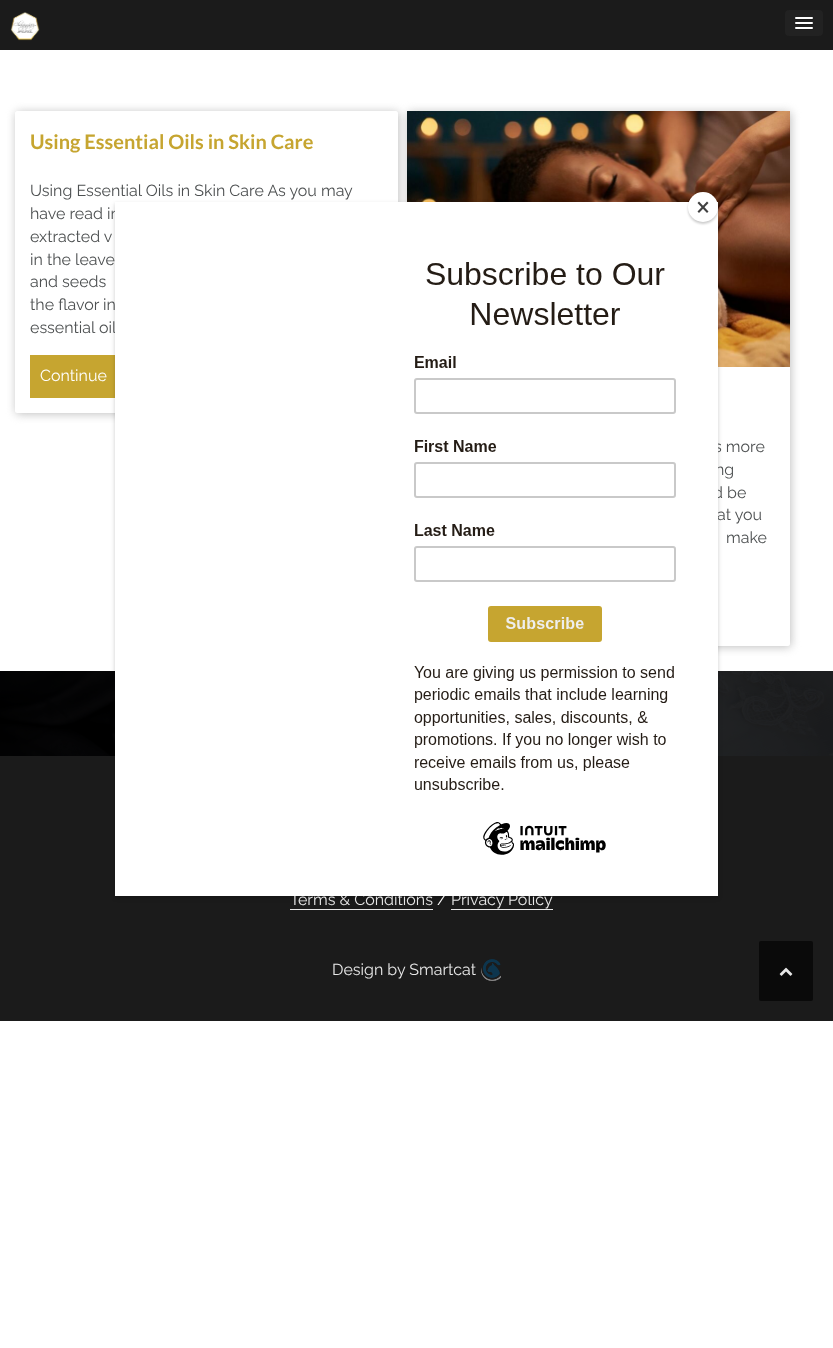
<!DOCTYPE html>
<meta charset="utf-8">
<style>body { margin: 0 } canvas { display: block }</style>
<canvas id="canvas" width="833" height="1348"></canvas>
<img id="img1" src="img_01.png" hidden>
<img id="img2" src="img_02.png" hidden>
<img id="img3" src="img_03.png" hidden>
<img id="img4" src="img_04.png" hidden>
<img id="img5" src="img_06.png" hidden>
<img id="img6" src="img_05.png" hidden>
<script>
window.onload = function () {
	const canvas = document.getElementById("canvas");
	const ctx = canvas.getContext("2d");
	ctx.miterLimit = 4;
	ctx.fontKerning = "normal";
	function txt(s, x, y) {
		ctx.fillText(s, x, y);
	}
	function fill(x, y, w, h) {
		ctx.fillRect(x, y, w, h);
	}
	function round(x, y, w, h, r) {
		ctx.beginPath();
		ctx.roundRect(x, y, w, h, r);
		ctx.fill();
	}
	function img(id, x, y, w, h) {
		ctx.drawImage(document.getElementById(id), x, y, w, h);
	}

	ctx.fillStyle = "#FFFFFF";
	fill(0, 0, 833, 1348);
	ctx.fillStyle = "#1B1B1B";
	fill(0, 0, 833, 50);
	img("img1", 10, 12, 30, 29);
	ctx.fillStyle = "#222222";
	round(785, 10, 38, 26, 4);
	ctx.fillStyle = "#1A1A1A";
	ctx.beginPath();
	ctx.moveTo(795, 18.5);
	ctx.bezierCurveTo(794, 20.5, 798.5, 20, 798.5, 20);
	ctx.lineTo(809.5, 20);
	ctx.bezierCurveTo(809.5, 20, 814, 20.5, 813, 18.5);
	ctx.bezierCurveTo(812, 19.5, 805.5, 19, 804, 19);
	ctx.bezierCurveTo(802.5, 19, 796, 19.5, 795, 18.5);
	ctx.closePath();
	ctx.fill();
	ctx.fillStyle = "#FFFFFF";
	round(795, 17, 18, 2, 1);
	ctx.fillStyle = "#1A1A1A";
	ctx.beginPath();
	ctx.moveTo(795, 23.5);
	ctx.bezierCurveTo(794, 25.5, 798.5, 25, 798.5, 25);
	ctx.lineTo(809.5, 25);
	ctx.bezierCurveTo(809.5, 25, 814, 25.5, 813, 23.5);
	ctx.bezierCurveTo(812, 24.5, 805.5, 24, 804, 24);
	ctx.bezierCurveTo(802.5, 24, 796, 24.5, 795, 23.5);
	ctx.closePath();
	ctx.fill();
	ctx.fillStyle = "#FFFFFF";
	round(795, 22, 18, 2, 1);
	ctx.fillStyle = "#1A1A1A";
	ctx.beginPath();
	ctx.moveTo(795, 28.5);
	ctx.bezierCurveTo(794, 30.5, 798.5, 30, 798.5, 30);
	ctx.lineTo(809.5, 30);
	ctx.bezierCurveTo(809.5, 30, 814, 30.5, 813, 28.5);
	ctx.bezierCurveTo(812, 29.5, 805.5, 29, 804, 29);
	ctx.bezierCurveTo(802.5, 29, 796, 29.5, 795, 28.5);
	ctx.closePath();
	ctx.fill();
	ctx.fillStyle = "#FFFFFF";
	round(795, 27, 18, 2, 1);
	ctx.save();
	ctx.beginPath();
	ctx.moveTo(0, 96);
	ctx.lineTo(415, 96);
	ctx.lineTo(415, 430);
	ctx.lineTo(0, 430);
	ctx.closePath();
	ctx.moveTo(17, 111);
	ctx.lineTo(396, 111);
	ctx.bezierCurveTo(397, 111, 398, 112, 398, 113);
	ctx.lineTo(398, 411);
	ctx.bezierCurveTo(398, 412, 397, 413, 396, 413);
	ctx.lineTo(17, 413);
	ctx.bezierCurveTo(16, 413, 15, 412, 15, 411);
	ctx.lineTo(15, 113);
	ctx.bezierCurveTo(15, 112, 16, 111, 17, 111);
	ctx.closePath();
	ctx.clip("evenodd");
	ctx.fillStyle = "#BFBFBF";
	ctx.filter = "blur(5px)";
	ctx.beginPath();
	ctx.roundRect(16, 112, 383, 302, 2);
	ctx.fill();
	ctx.filter = "none";
	ctx.restore();
	ctx.fillStyle = "#C6A530";
	fill(30, 355, 85, 43);
	ctx.save();
	ctx.beginPath();
	ctx.moveTo(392, 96);
	ctx.lineTo(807, 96);
	ctx.lineTo(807, 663);
	ctx.lineTo(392, 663);
	ctx.closePath();
	ctx.moveTo(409, 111);
	ctx.lineTo(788, 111);
	ctx.bezierCurveTo(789, 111, 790, 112, 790, 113);
	ctx.lineTo(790, 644);
	ctx.bezierCurveTo(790, 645, 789, 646, 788, 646);
	ctx.lineTo(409, 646);
	ctx.bezierCurveTo(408, 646, 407, 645, 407, 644);
	ctx.lineTo(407, 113);
	ctx.bezierCurveTo(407, 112, 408, 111, 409, 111);
	ctx.closePath();
	ctx.clip("evenodd");
	ctx.fillStyle = "#BFBFBF";
	ctx.filter = "blur(5px)";
	ctx.beginPath();
	ctx.roundRect(408, 112, 383, 535, 2);
	ctx.fill();
	ctx.filter = "none";
	ctx.restore();
	img("img2", 407, 111, 383, 256);
	ctx.fillStyle = "#1B1B1B";
	fill(0, 756, 833, 265);
	ctx.fillStyle = "#E8E8E8";
	fill(290, 909, 143, 1);
	fill(451, 909, 102, 1);
	img("img3", 481, 959, 20, 22);
	ctx.fillStyle = "#0A0A0A";
	round(759, 941, 54, 60, 2);
	img("img4", 779, 967, 14, 9);
	img("img5", 0, 671, 833, 85);
	ctx.fillStyle = "rgba(0, 0, 0, 0.2)";
	ctx.filter = "blur(2px)";
	ctx.beginPath();
	ctx.rect(115, 204, 603, 694);
	ctx.fill();
	ctx.filter = "none";
	ctx.font = "bold 20px Lato";
	ctx.fillStyle = "#C6A530";
	txt("Using Essential Oils in Skin Care", 30, 149);
	ctx.font = "16px Raleway";
	ctx.fillStyle = "#4D5051";
	txt("Using Essential Oils in Skin Care As you may", 30, 196);
	txt("have read in", 30, 219);
	txt("extracted v", 30, 242);
	txt("in the leave", 30, 265);
	txt("and seeds", 30, 287);
	txt("the flavor in", 30, 310);
	txt("essential oil", 30, 333);
	ctx.fillStyle = "#FFFFFF";
	txt("Continue", 40, 381);
	ctx.fillStyle = "#4D5051";
	txt("s more", 714, 452);
	txt("ng", 715, 475);
	txt("d be", 713, 498);
	txt("at you", 717, 520);
	txt("make", 726, 543);
	ctx.fillStyle = "#E8E8E8";
	txt("Terms & Conditions", 290, 905);
	ctx.fillStyle = "#FFFFFF";
	txt("/", 437, 905);
	ctx.fillStyle = "#E8E8E8";
	txt("Privacy Policy", 451, 905);
	txt("Design by Smartcat", 332, 975);
	img("img6", 115, 202, 603, 694);
	ctx.fillStyle = "rgba(0, 0, 0, 0.2)";
	ctx.filter = "blur(1px)";
	ctx.beginPath();
	ctx.roundRect(688, 194, 30, 30, 15);
	ctx.fill();
	ctx.filter = "none";
	ctx.fillStyle = "#FFFFFF";
	ctx.beginPath();
	ctx.arc(703, 207, 15, 0, Math.PI * 2);
	ctx.fill();
	ctx.fillStyle = "#414141";
	ctx.beginPath();
	ctx.moveTo(707, 201.5);
	ctx.lineTo(708.5, 203);
	ctx.lineTo(699, 213);
	ctx.lineTo(697.5, 211.5);
	ctx.closePath();
	ctx.fill();
	ctx.beginPath();
	ctx.moveTo(697.5, 203);
	ctx.lineTo(699, 201.5);
	ctx.lineTo(708.5, 211.5);
	ctx.lineTo(707, 213);
	ctx.closePath();
	ctx.fill();
};
</script>
